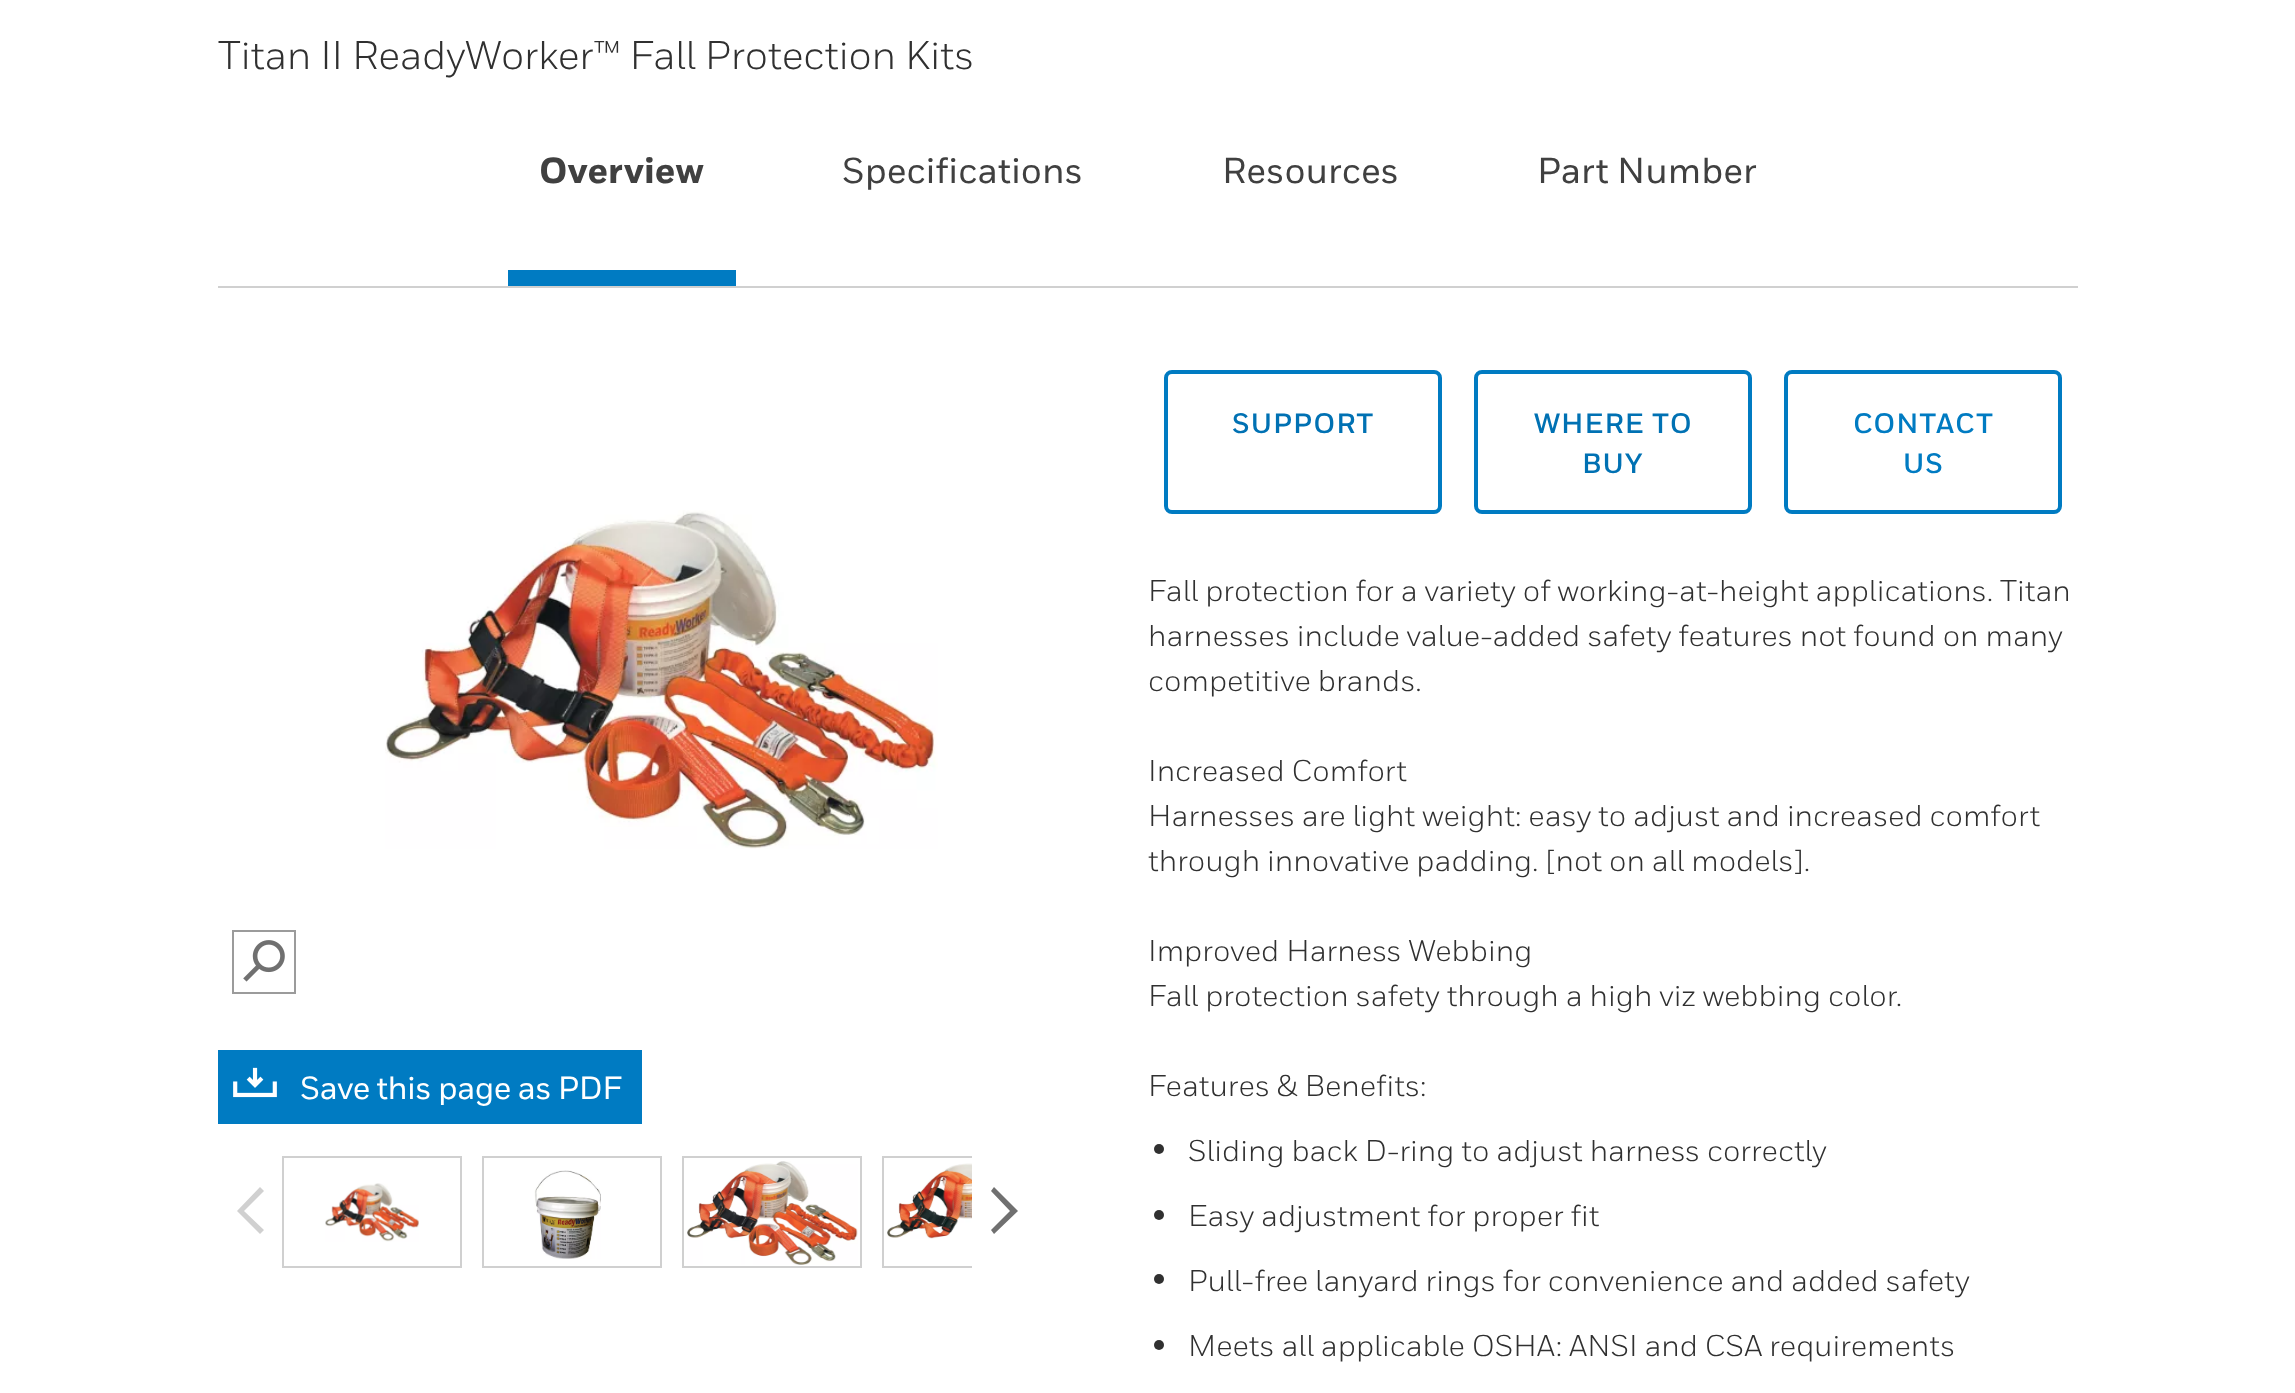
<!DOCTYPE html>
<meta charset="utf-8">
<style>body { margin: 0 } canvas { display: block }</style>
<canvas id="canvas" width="2295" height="1393"></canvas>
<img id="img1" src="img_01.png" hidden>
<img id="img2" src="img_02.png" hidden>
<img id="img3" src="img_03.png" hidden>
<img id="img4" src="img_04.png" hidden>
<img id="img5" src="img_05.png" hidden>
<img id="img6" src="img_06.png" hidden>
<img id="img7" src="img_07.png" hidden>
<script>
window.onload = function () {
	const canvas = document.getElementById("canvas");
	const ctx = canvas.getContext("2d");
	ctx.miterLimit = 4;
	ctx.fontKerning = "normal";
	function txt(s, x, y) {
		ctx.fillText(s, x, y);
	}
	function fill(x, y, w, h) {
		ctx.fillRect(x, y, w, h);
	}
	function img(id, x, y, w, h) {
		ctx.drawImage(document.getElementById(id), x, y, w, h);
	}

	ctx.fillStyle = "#FFFFFF";
	fill(0, 0, 2295, 1393);
	ctx.fillStyle = "#D0D0D0";
	fill(218, 286, 1860, 2);
	ctx.fillStyle = "#007BC2";
	fill(508, 270, 228, 16);
	img("img1", 385, 510, 553, 339);
	ctx.strokeStyle = "#9B9B9B";
	ctx.lineWidth = 2;
	ctx.strokeRect(233, 931, 62, 62);
	img("img2", 243, 940, 42, 42);
	fill(218, 1050, 424, 74);
	img("img3", 233, 1067, 44, 31);
	ctx.fillStyle = "#D0D0D0";
	ctx.beginPath();
	ctx.moveTo(260, 1187);
	ctx.lineTo(264, 1191);
	ctx.lineTo(244, 1211);
	ctx.lineTo(264, 1230);
	ctx.lineTo(260, 1234);
	ctx.lineTo(237, 1211);
	ctx.closePath();
	ctx.fill();
	ctx.strokeStyle = "#D0D0D0";
	ctx.strokeRect(283, 1157, 178, 110);
	img("img4", 325, 1183, 94, 59);
	ctx.strokeRect(483, 1157, 178, 110);
	img("img5", 534, 1170, 67, 89);
	ctx.strokeRect(683, 1157, 178, 110);
	img("img6", 687, 1161, 171, 104);
	ctx.fillStyle = "#707070";
	ctx.beginPath();
	ctx.moveTo(994, 1187);
	ctx.lineTo(1018, 1211);
	ctx.lineTo(994, 1234);
	ctx.lineTo(991, 1230);
	ctx.lineTo(1010, 1211);
	ctx.lineTo(991, 1191);
	ctx.closePath();
	ctx.fill();
	ctx.save();
	ctx.beginPath();
	ctx.rect(282, 1156, 690, 112);
	ctx.clip();
	ctx.strokeRect(883, 1157, 178, 110);
	ctx.restore();
	img("img7", 887, 1163, 85, 76);
	ctx.beginPath();
	ctx.roundRect(1166, 372, 274, 140, 6);
	ctx.strokeStyle = "#007BC2";
	ctx.lineWidth = 4;
	ctx.stroke();
	ctx.beginPath();
	ctx.roundRect(1476, 372, 274, 140, 6);
	ctx.stroke();
	ctx.beginPath();
	ctx.roundRect(1786, 372, 274, 140, 6);
	ctx.stroke();
	ctx.fillStyle = "#303030";
	ctx.beginPath();
	ctx.arc(1159, 1149, 5, 0, Math.PI * 2);
	ctx.fill();
	ctx.beginPath();
	ctx.arc(1159, 1215, 5, 0, Math.PI * 2);
	ctx.fill();
	ctx.beginPath();
	ctx.arc(1159, 1279, 5, 0, Math.PI * 2);
	ctx.fill();
	ctx.beginPath();
	ctx.arc(1159, 1345, 5, 0, Math.PI * 2);
	ctx.fill();
	ctx.letterSpacing = "-0.2px";
	ctx.font = "40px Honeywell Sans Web";
	txt("Titan II ReadyWorker™ Fall Protection Kits", 218, 69);
	ctx.letterSpacing = "0px";
	ctx.font = "800 36px Honeywell Sans Web";
	ctx.fillStyle = "#404040";
	txt("Overview", 539, 183);
	ctx.font = "500 36px Honeywell Sans Web";
	txt("Specifications", 842, 183);
	txt("Resources", 1222, 183);
	txt("Part Number", 1537, 183);
	ctx.letterSpacing = "-0.6px";
	ctx.font = "500 32px Honeywell Sans Web";
	ctx.fillStyle = "#FFFFFF";
	txt("Save this page as PDF", 300, 1099);
	ctx.letterSpacing = "1px";
	ctx.font = "bold 28px Honeywell Sans Web";
	ctx.fillStyle = "#0071B3";
	txt("SUPPORT", 1232, 433);
	txt("WHERE TO", 1534, 433);
	txt("BUY", 1582, 473);
	ctx.fillStyle = "#007BC2";
	txt("CONTACT", 1853, 433);
	txt("US", 1903, 473);
	ctx.letterSpacing = "0px";
	ctx.font = "30px Honeywell Sans Web";
	ctx.fillStyle = "#303030";
	txt("Fall protection for a variety of working-at-height applications. Titan", 1148, 601);
	txt("harnesses include value-added safety features not found on many", 1148, 646);
	txt("competitive brands.", 1148, 691);
	txt("Increased Comfort", 1148, 781);
	txt("Harnesses are light weight: easy to adjust and increased comfort", 1148, 826);
	txt("through innovative padding. [not on all models].", 1148, 871);
	txt("Improved Harness Webbing", 1148, 961);
	txt("Fall protection safety through a high viz webbing color.", 1148, 1006);
	txt("Features & Benefits:", 1148, 1096);
	txt("Sliding back D-ring to adjust harness correctly", 1188, 1161);
	txt("Easy adjustment for proper fit", 1188, 1226);
	txt("Pull-free lanyard rings for convenience and added safety", 1188, 1291);
	txt("Meets all applicable OSHA: ANSI and CSA requirements", 1188, 1356);
};
</script>
